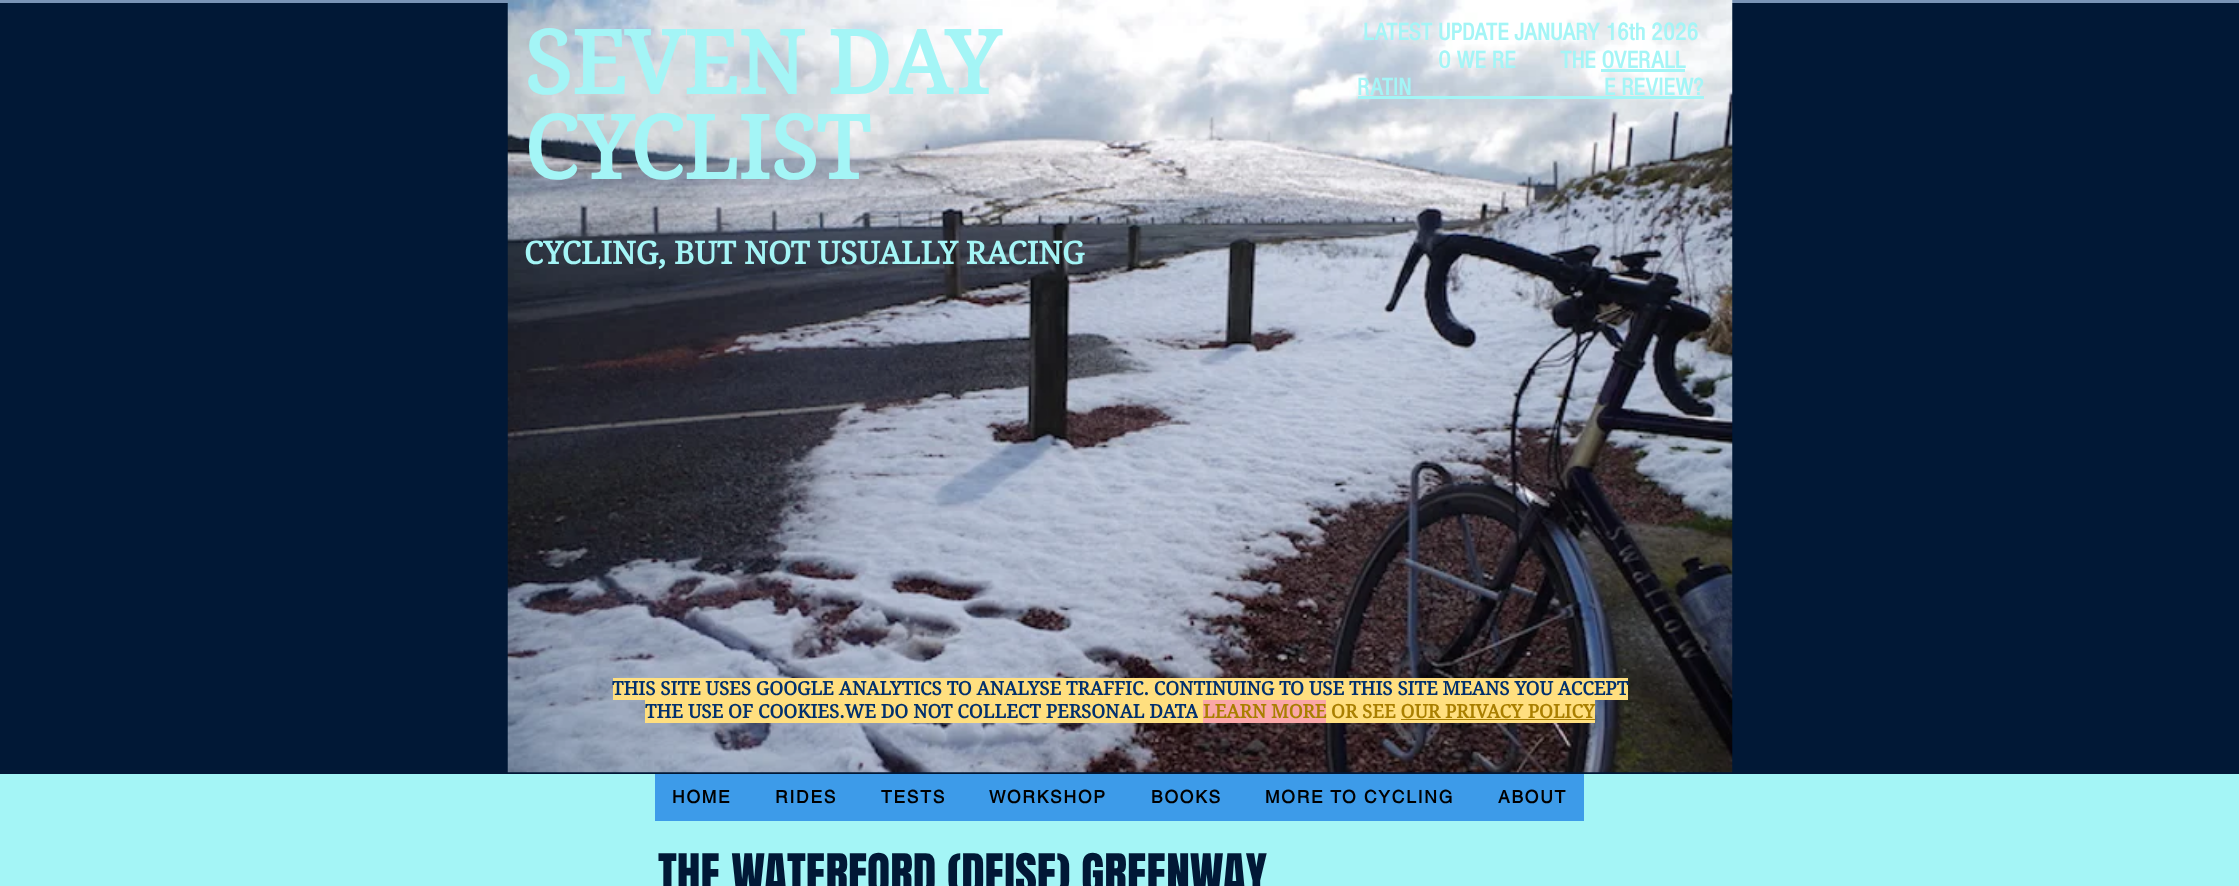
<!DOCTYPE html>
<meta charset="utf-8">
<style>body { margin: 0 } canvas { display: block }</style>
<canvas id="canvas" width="2239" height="886"></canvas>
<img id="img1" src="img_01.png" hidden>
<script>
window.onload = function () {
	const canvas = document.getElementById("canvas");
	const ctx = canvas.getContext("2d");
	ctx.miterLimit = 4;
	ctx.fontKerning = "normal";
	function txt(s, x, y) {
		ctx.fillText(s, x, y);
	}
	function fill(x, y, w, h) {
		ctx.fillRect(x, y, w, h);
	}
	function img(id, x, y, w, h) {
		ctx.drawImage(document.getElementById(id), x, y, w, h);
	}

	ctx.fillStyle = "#A4F5F6";
	fill(0, 0, 2239, 886);
	ctx.fillStyle = "#011836";
	fill(0, 3, 2239, 771);
	ctx.fillStyle = "#7A94B6";
	fill(0, 0, 2239, 3);
	img("img1", 507, 0, 1226, 773);
	ctx.fillStyle = "#A4F5F6";
	fill(1358, 96, 346, 3);
	fill(1601, 69, 84, 3);
	ctx.fillStyle = "#FFDF7F";
	fill(613, 678, 1015, 22);
	fill(645, 700, 553, 23);
	ctx.fillStyle = "#FAA7A7";
	fill(1203, 700, 123, 23);
	ctx.fillStyle = "#FFDF7F";
	fill(1326, 700, 269, 23);
	ctx.fillStyle = "#A97F00";
	fill(1401, 719, 194, 1);
	ctx.fillStyle = "#3D9BE9";
	fill(655, 774, 929, 47);
	ctx.font = "bold 87.5px 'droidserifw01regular'";
	ctx.fillStyle = "#A4F5F6";
	txt("SEVEN DAY", 524, 94);
	txt("CYCLIST", 524, 179);
	ctx.font = "bold 31.25px 'droidserifw01regular'";
	txt("CYCLING, BUT NOT USUALLY RACING", 524, 264);
	ctx.font = "bold 25px 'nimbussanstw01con'";
	txt("LATEST UPDATE JANUARY 16th 2026", 1363, 40);
	txt("O WE RE", 1438, 68);
	txt("THE OVERALL", 1560, 68);
	txt("RATIN", 1357, 95);
	txt("E REVIEW?", 1604, 95);
	ctx.font = "bold 18.75px 'droidserifw01regular'";
	ctx.fillStyle = "#02306D";
	txt("THIS SITE USES GOOGLE ANALYTICS TO ANALYSE TRAFFIC. CONTINUING TO USE THIS SITE MEANS YOU ACCEPT", 612, 695);
	txt("THE USE OF COOKIES.WE DO NOT COLLECT PERSONAL DATA", 645, 718);
	ctx.fillStyle = "#FFDF7F";
	fill(1198, 700, 5, 23);
	ctx.fillStyle = "#A97F00";
	txt("LEARN MORE", 1203, 718);
	txt("OR SEE OUR PRIVACY POLICY", 1331, 718);
	ctx.letterSpacing = "1.75px";
	ctx.font = "bold 17.5px helvetica";
	ctx.fillStyle = "#000000";
	txt("HOME", 672, 803);
	txt("RIDES", 775, 803);
	txt("TESTS", 881, 803);
	txt("WORKSHOP", 989, 803);
	txt("BOOKS", 1151, 803);
	txt("MORE TO CYCLING", 1265, 803);
	txt("ABOUT", 1498, 803);
	ctx.letterSpacing = "0px";
	ctx.font = "47.5px Anton";
	ctx.fillStyle = "#011836";
	txt("THE WATERFORD (DEISE) GREENWAY", 658, 894);
};
</script>
